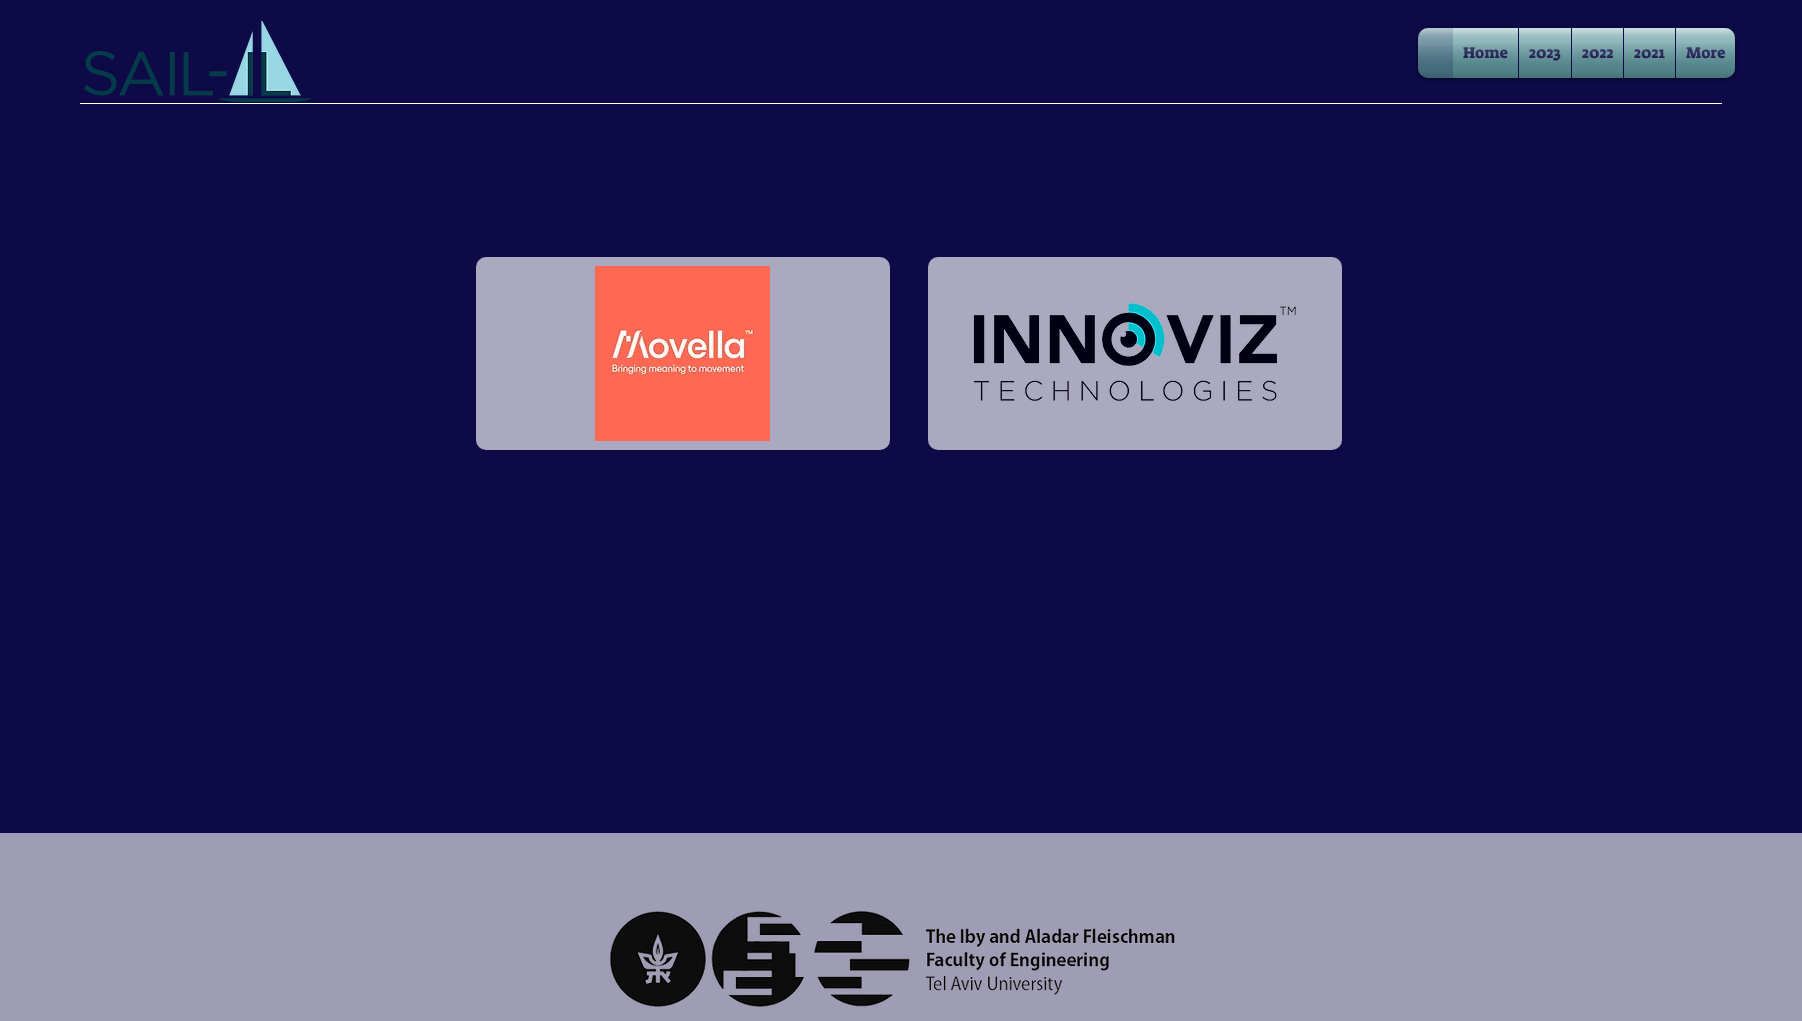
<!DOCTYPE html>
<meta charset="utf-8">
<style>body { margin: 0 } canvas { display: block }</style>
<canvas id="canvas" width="1802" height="1021"></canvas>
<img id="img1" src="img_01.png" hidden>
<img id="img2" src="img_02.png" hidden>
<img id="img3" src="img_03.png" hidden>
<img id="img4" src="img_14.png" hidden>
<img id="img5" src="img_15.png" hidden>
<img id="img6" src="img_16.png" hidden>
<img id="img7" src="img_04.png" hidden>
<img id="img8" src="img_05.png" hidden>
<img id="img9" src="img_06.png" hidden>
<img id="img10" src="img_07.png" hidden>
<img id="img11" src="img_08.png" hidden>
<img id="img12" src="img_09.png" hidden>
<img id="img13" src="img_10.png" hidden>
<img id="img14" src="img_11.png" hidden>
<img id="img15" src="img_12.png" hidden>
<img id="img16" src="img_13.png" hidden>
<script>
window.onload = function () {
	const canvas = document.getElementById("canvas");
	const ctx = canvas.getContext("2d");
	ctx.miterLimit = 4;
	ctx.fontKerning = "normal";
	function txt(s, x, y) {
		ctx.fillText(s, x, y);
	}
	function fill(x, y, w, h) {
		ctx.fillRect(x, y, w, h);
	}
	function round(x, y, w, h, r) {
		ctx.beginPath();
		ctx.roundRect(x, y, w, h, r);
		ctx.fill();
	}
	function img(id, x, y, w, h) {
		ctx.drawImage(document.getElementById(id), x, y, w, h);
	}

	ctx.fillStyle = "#0E0A48";
	fill(0, 0, 1802, 1021);
	img("img1", 84, 21, 227, 81);
	ctx.save();
	ctx.beginPath();
	ctx.moveTo(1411, 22);
	ctx.lineTo(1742, 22);
	ctx.lineTo(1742, 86);
	ctx.lineTo(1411, 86);
	ctx.closePath();
	ctx.moveTo(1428, 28);
	ctx.lineTo(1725, 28);
	ctx.bezierCurveTo(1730.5, 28, 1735, 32.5, 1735, 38);
	ctx.lineTo(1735, 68);
	ctx.bezierCurveTo(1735, 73.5, 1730.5, 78, 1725, 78);
	ctx.lineTo(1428, 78);
	ctx.bezierCurveTo(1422.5, 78, 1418, 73.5, 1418, 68);
	ctx.lineTo(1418, 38);
	ctx.bezierCurveTo(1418, 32.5, 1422.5, 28, 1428, 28);
	ctx.closePath();
	ctx.clip("evenodd");
	ctx.fillStyle = "rgba(0, 0, 0, 0.6)";
	ctx.filter = "blur(2px)";
	ctx.beginPath();
	ctx.roundRect(1418, 29, 317, 50, 10);
	ctx.fill();
	ctx.filter = "none";
	ctx.restore();
	ctx.fillStyle = "rgba(92, 156, 160, 0.7)";
	round(1418, 28, 317, 50, 10);
	img("img2", 1418, 28, 317, 46);
	img("img3", 1418, 46, 317, 32);
	fill(1453, 28, 65, 50);
	fill(1519, 28, 52, 50);
	ctx.fillStyle = "#0E0A48";
	fill(1518, 28, 1, 50);
	ctx.fillStyle = "rgba(92, 156, 160, 0.7)";
	fill(1572, 28, 51, 50);
	ctx.fillStyle = "#0E0A48";
	fill(1571, 28, 1, 50);
	ctx.fillStyle = "rgba(92, 156, 160, 0.7)";
	fill(1624, 28, 51, 50);
	ctx.fillStyle = "#0E0A48";
	fill(1623, 28, 1, 50);
	ctx.fillStyle = "rgba(92, 156, 160, 0.7)";
	ctx.beginPath();
	ctx.roundRect(1675, 28, 60, 50, [0, 10, 10, 0]);
	ctx.fill();
	ctx.fillStyle = "#0E0A48";
	fill(1675, 28, 1, 50);
	ctx.fillStyle = "#FFFFFF";
	fill(80, 103, 1642, 1);
	ctx.fillStyle = "#ABA9BF";
	round(476, 257, 414, 193, 10);
	img("img4", 595, 266, 175, 175);
	round(928, 257, 414, 193, 10);
	img("img5", 973, 303, 323, 98);
	ctx.fillStyle = "#9F9DB6";
	fill(0, 833, 1802, 188);
	img("img6", 609, 910, 566, 97);
	ctx.font = "16px Suez One";
	ctx.fillStyle = "#0E0A48";
	txt("Home", 1463, 58);
	img("img7", 1453, 28, 65, 46);
	img("img8", 1453, 44, 65, 34);
	txt("2023", 1529, 58);
	img("img9", 1519, 28, 52, 46);
	img("img10", 1519, 44, 52, 34);
	txt("2022", 1582, 58);
	img("img11", 1572, 28, 51, 46);
	img("img12", 1572, 44, 51, 34);
	txt("2021", 1634, 58);
	img("img13", 1624, 28, 51, 46);
	img("img14", 1624, 44, 51, 34);
	txt("More", 1686, 58);
	img("img15", 1676, 28, 59, 46);
	img("img16", 1676, 44, 59, 34);
};
</script>
